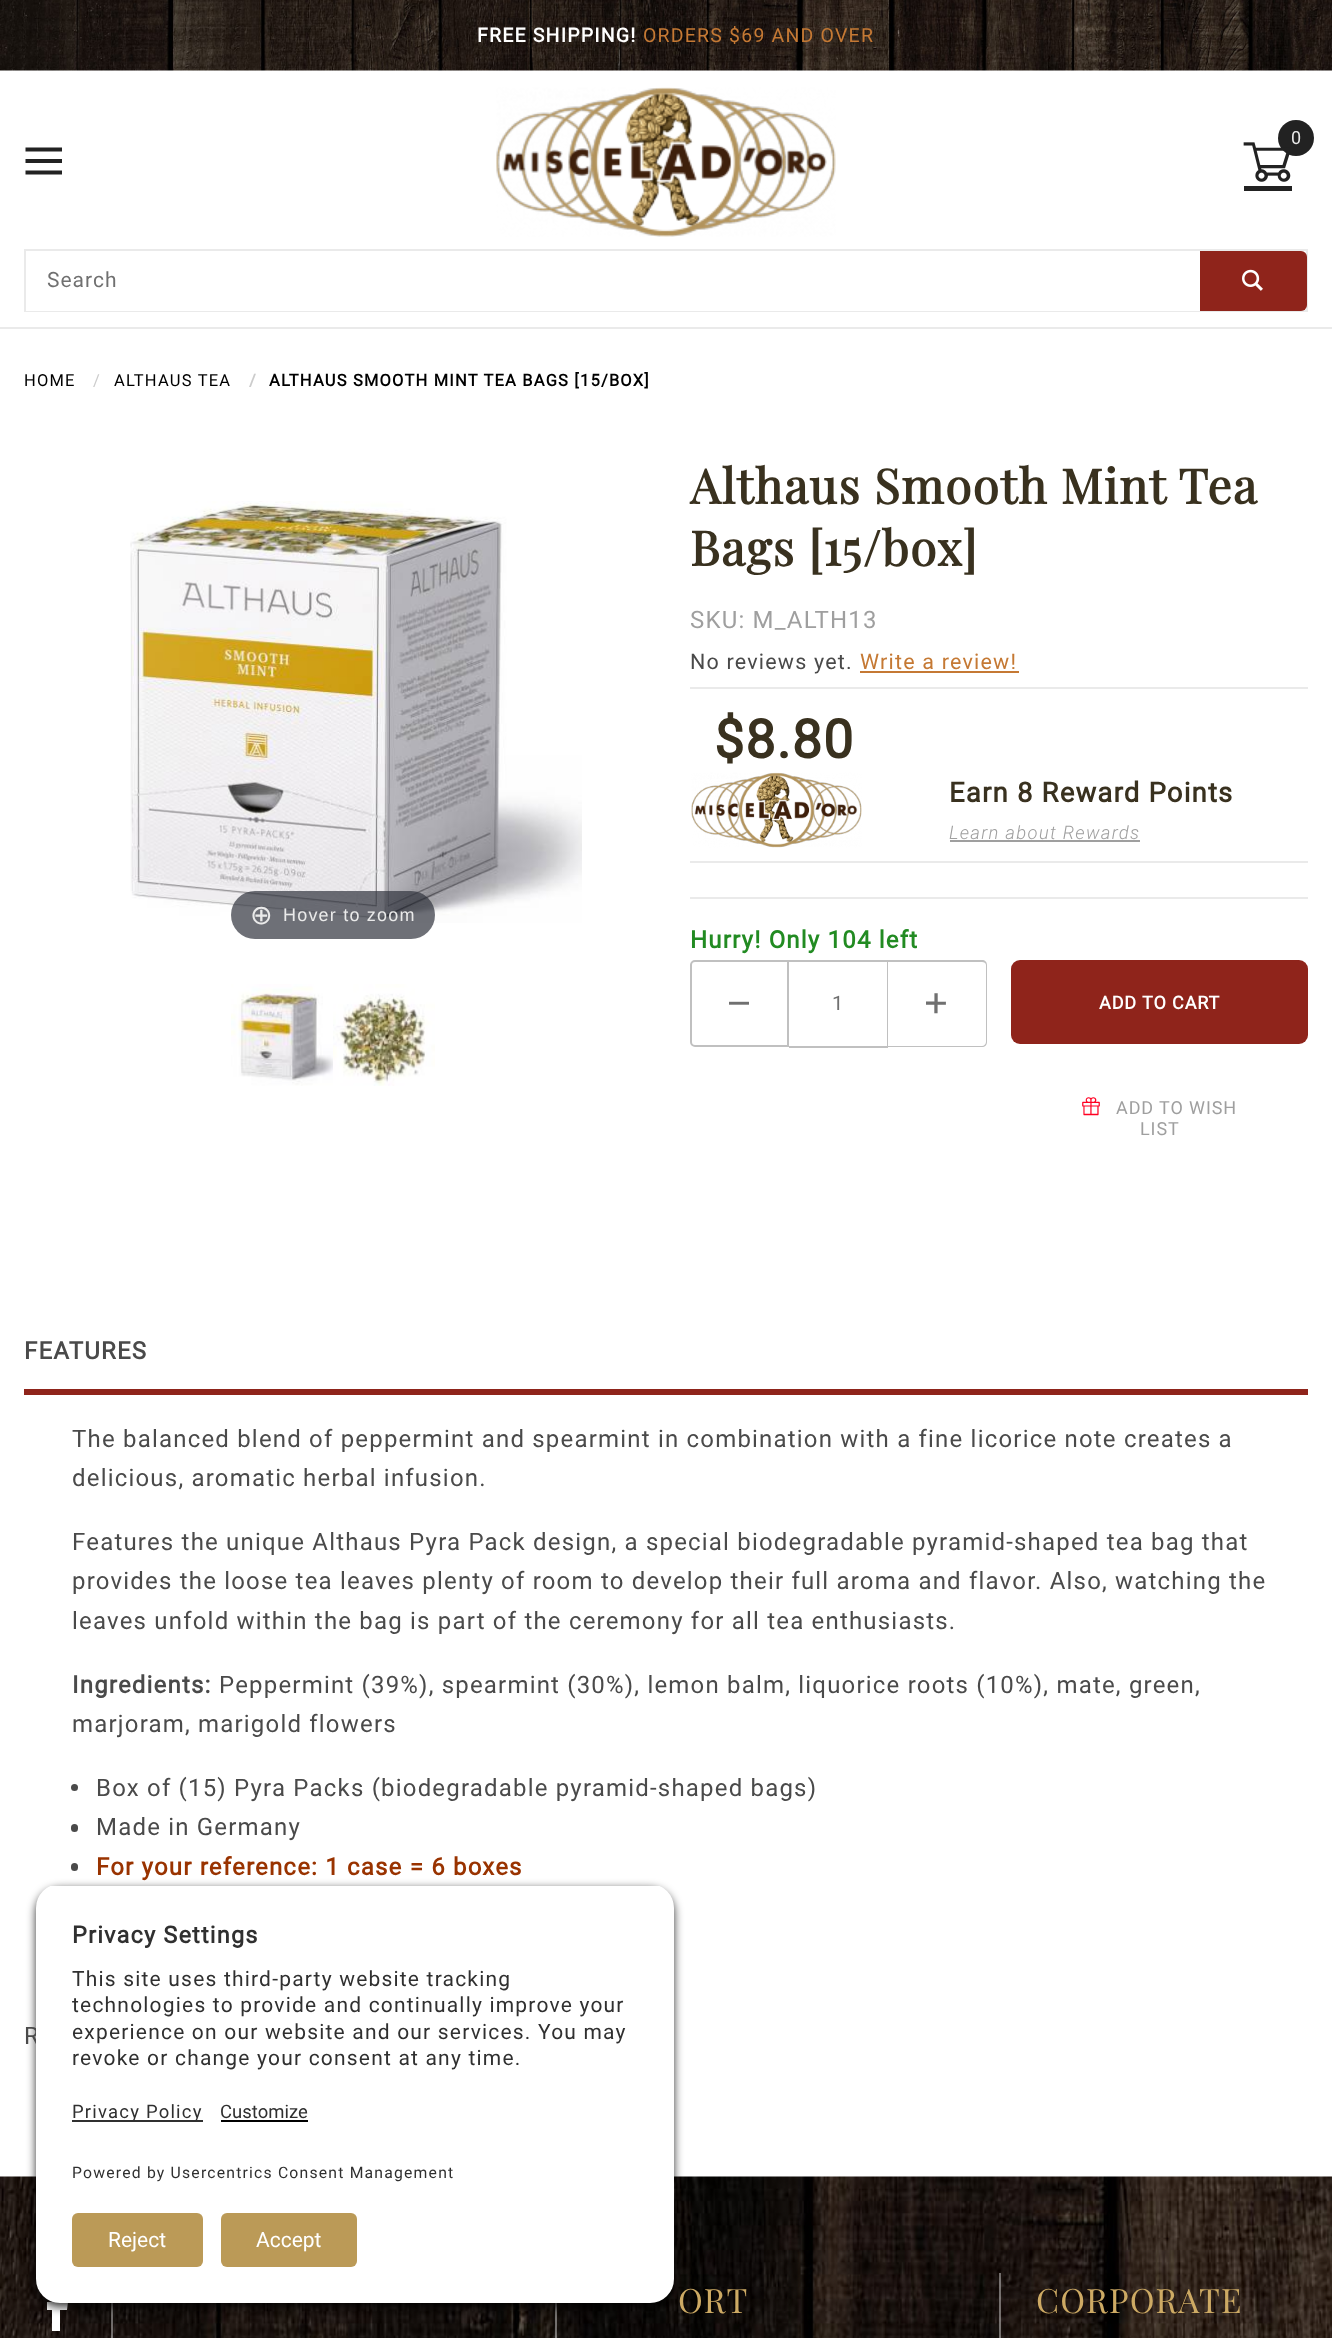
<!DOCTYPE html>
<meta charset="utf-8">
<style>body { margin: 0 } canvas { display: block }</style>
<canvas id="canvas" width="1332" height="2338"></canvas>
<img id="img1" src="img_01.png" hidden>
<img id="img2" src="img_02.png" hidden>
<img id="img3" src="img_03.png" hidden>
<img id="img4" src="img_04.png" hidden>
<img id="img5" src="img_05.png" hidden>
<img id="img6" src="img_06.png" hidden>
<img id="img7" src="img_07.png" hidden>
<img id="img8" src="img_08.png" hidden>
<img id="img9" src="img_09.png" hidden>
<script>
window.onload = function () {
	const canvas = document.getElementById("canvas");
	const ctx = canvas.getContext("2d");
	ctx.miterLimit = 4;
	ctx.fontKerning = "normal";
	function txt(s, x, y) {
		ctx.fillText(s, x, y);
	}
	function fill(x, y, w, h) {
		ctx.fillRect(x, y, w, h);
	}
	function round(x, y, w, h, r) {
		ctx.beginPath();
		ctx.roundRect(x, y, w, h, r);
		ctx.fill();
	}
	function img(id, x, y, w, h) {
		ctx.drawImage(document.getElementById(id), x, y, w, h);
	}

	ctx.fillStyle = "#FFFFFF";
	fill(0, 0, 1332, 2338);
	ctx.fillStyle = "#EAEAEA";
	fill(0, 327, 1332, 2);
	img("img1", 0, 0, 1332, 71);
	img("img2", 496, 87, 340, 150);
	ctx.fillStyle = "#222222";
	ctx.beginPath();
	ctx.arc(1296, 138, 18, 0, Math.PI * 2);
	ctx.fill();
	fill(1244, 186, 48, 5);
	img("img3", 1243, 142, 48, 40);
	ctx.beginPath();
	ctx.moveTo(25.5, 170.5);
	ctx.lineTo(25.5, 174.5);
	ctx.lineTo(62, 174.5);
	ctx.lineTo(62, 170.5);
	ctx.closePath();
	ctx.moveTo(25.5, 159);
	ctx.lineTo(25.5, 163);
	ctx.lineTo(62, 163);
	ctx.lineTo(62, 159);
	ctx.closePath();
	ctx.moveTo(25.5, 147.5);
	ctx.lineTo(25.5, 151.5);
	ctx.lineTo(62, 151.5);
	ctx.lineTo(62, 147.5);
	ctx.closePath();
	ctx.fill();
	ctx.strokeStyle = "#EAEAEA";
	ctx.lineWidth = 2;
	ctx.strokeRect(25, 250, 1282, 61);
	ctx.fillStyle = "#FFFFFF";
	fill(26, 310, 1174, 1);
	ctx.fillStyle = "#8F241B";
	ctx.beginPath();
	ctx.roundRect(1200, 251, 107, 60, [0, 6, 6, 0]);
	ctx.fill();
	img("img4", 1242, 269, 21, 22);
	img("img5", 130, 501, 452, 422);
	ctx.fillStyle = "rgba(49, 51, 61, 0.7)";
	round(231, 891, 204, 48, 24);
	img("img6", 231, 984, 102, 102);
	img("img7", 333, 984, 102, 102);
	ctx.fillStyle = "#C57934";
	fill(860, 671, 159, 2);
	ctx.fillStyle = "#EAEAEA";
	fill(690, 687, 618, 2);
	img("img8", 691, 772, 171, 76);
	ctx.fillStyle = "#9F9F9F";
	fill(950, 840, 190, 2);
	ctx.fillStyle = "#EAEAEA";
	fill(690, 861, 618, 2);
	fill(690, 897, 618, 2);
	ctx.beginPath();
	ctx.roundRect(691, 961, 97, 85, [4, 0, 0, 4]);
	ctx.strokeStyle = "#C0C0C0";
	ctx.stroke();
	ctx.fillStyle = "#C0C0C0";
	fill(789, 960, 99, 2);
	fill(887, 960, 1, 87);
	fill(789, 1046, 99, 2);
	ctx.beginPath();
	ctx.moveTo(888, 960);
	ctx.lineTo(982, 960);
	ctx.bezierCurveTo(985, 960, 987, 962, 987, 965);
	ctx.lineTo(987, 1042);
	ctx.bezierCurveTo(987, 1045, 985, 1047, 982, 1047);
	ctx.lineTo(888, 1047);
	ctx.closePath();
	ctx.moveTo(888, 962);
	ctx.lineTo(982, 962);
	ctx.bezierCurveTo(984, 962, 986, 963, 986, 965);
	ctx.lineTo(986, 1042);
	ctx.bezierCurveTo(986, 1044, 984, 1046, 982, 1046);
	ctx.lineTo(888, 1046);
	ctx.closePath();
	ctx.fill("evenodd");
	ctx.fillStyle = "#8F241B";
	round(1011, 960, 297, 84, 9);
	fill(24, 1389, 1284, 6);
	ctx.fillStyle = "#4A4A4A";
	ctx.beginPath();
	ctx.arc(74.5, 1787.5, 3.5, 0, Math.PI * 2);
	ctx.fill();
	round(71, 1824, 7, 8, 3.5);
	round(71, 1863, 7, 8, 3.5);
	img("img9", 0, 2176, 1332, 162);
	ctx.fillStyle = "#FFFFFF";
	ctx.beginPath();
	ctx.moveTo(52, 2331);
	ctx.lineTo(60, 2331);
	ctx.lineTo(60, 2310);
	ctx.lineTo(67, 2310);
	ctx.lineTo(68, 2302);
	ctx.lineTo(60, 2302);
	ctx.bezierCurveTo(60, 2295, 60, 2296, 68, 2296);
	ctx.lineTo(68, 2289);
	ctx.bezierCurveTo(54, 2289, 52, 2288, 52, 2302);
	ctx.lineTo(47, 2302);
	ctx.lineTo(47, 2310);
	ctx.lineTo(52, 2310);
	ctx.closePath();
	ctx.fill();
	ctx.fillStyle = "rgba(255, 255, 255, 0.4)";
	fill(111, 2303, 2, 35);
	fill(555, 2303, 2, 35);
	ctx.fillStyle = "rgba(0, 0, 0, 0.8)";
	ctx.filter = "blur(5px)";
	ctx.beginPath();
	ctx.roundRect(36, 1889, 638, 418, 24);
	ctx.fill();
	ctx.filter = "none";
	ctx.fillStyle = "#FFFFFF";
	ctx.beginPath();
	ctx.roundRect(36, 2078, 638, 225, [0, 0, 24, 24]);
	ctx.fill();
	ctx.fillStyle = "#303030";
	fill(72, 2120, 131, 2);
	ctx.fillStyle = "#000000";
	fill(221, 2120, 87, 2);
	ctx.fillStyle = "#BB9A57";
	round(72, 2213, 131, 54, 6);
	round(221, 2213, 136, 54, 6);
	ctx.fillStyle = "rgba(255, 255, 255, 0.4)";
	fill(999, 2273, 2, 65);
	ctx.letterSpacing = "1.2px";
	ctx.font = "bold 19.5px Roboto";
	ctx.fillStyle = "#FFFFFF";
	txt("FREE SHIPPING!", 477, 42);
	ctx.font = "19.5px Roboto";
	ctx.fillStyle = "#C57934";
	txt("ORDERS $69 AND OVER", 643, 42);
	ctx.font = "18px Roboto";
	ctx.fillStyle = "#EAEAEA";
	txt("0", 1291, 144);
	ctx.letterSpacing = "1px";
	ctx.font = "21px Roboto";
	ctx.fillStyle = "#707070";
	txt("Search", 47, 287);
	ctx.letterSpacing = "1.2px";
	ctx.font = "16.5px Roboto";
	ctx.fillStyle = "#000000";
	txt("HOME", 24, 386);
	ctx.fillStyle = "#CCCCCC";
	txt("/", 93, 386);
	ctx.fillStyle = "#000000";
	txt("ALTHAUS TEA", 114, 386);
	ctx.font = "bold 16.5px Roboto";
	ctx.fillStyle = "#CCCCCC";
	txt("/", 249, 386);
	ctx.fillStyle = "#000000";
	txt("ALTHAUS SMOOTH MINT TEA BAGS [15/BOX]", 269, 386);
	ctx.font = "27px DejaVu Sans";
	ctx.fillStyle = "#EAEAEA";
	txt("⊕", 250, 924);
	ctx.font = "18px Liberation Sans";
	txt("Hover to zoom", 283, 921);
	ctx.font = "bold 48px Playfair Display";
	ctx.fillStyle = "#39311F";
	txt("Althaus Smooth Mint Tea", 690, 504);
	txt("Bags [15/box]", 690, 566);
	ctx.font = "24px Roboto";
	ctx.fillStyle = "#9F9F9F";
	txt("SKU: M_ALTH13", 690, 628);
	ctx.font = "21.5px Roboto";
	ctx.fillStyle = "#4A4A4A";
	txt("No reviews yet.", 690, 669);
	ctx.fillStyle = "#C57934";
	txt("Write a review!", 860, 669);
	ctx.font = "bold 53.5px Roboto";
	ctx.fillStyle = "#39311F";
	txt("$8.80", 714, 758);
	ctx.font = "bold 27.5px Roboto";
	txt("Earn 8 Reward Points", 949, 802);
	ctx.font = "italic 300 18.5px Roboto";
	ctx.fillStyle = "#9F9F9F";
	txt("Learn about Rewards", 949, 839);
	ctx.font = "bold 24px Roboto";
	ctx.fillStyle = "#228B22";
	txt("Hurry! Only 104 left", 690, 948);
	ctx.letterSpacing = "1px";
	ctx.font = "20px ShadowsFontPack";
	ctx.fillStyle = "#707070";
	txt("<", 729, 1012);
	ctx.font = "20px Roboto";
	txt("1", 832, 1010);
	ctx.font = "20px ShadowsFontPack";
	txt("=", 926, 1012);
	ctx.letterSpacing = "0.9px";
	ctx.font = "bold 18px Roboto";
	ctx.fillStyle = "#FFFFFF";
	txt("ADD TO CART", 1099, 1009);
	ctx.font = "18px ShadowsFontPack";
	ctx.fillStyle = "#FF0022";
	txt("%", 1082, 1114);
	ctx.font = "18px Roboto";
	ctx.fillStyle = "#9F9F9F";
	txt("ADD TO WISH", 1116, 1114);
	txt("LIST", 1140, 1135);
	ctx.letterSpacing = "1.2px";
	ctx.font = "bold 24px Roboto";
	ctx.fillStyle = "#4A4A4A";
	txt("FEATURES", 24, 1359);
	ctx.font = "24px Roboto";
	txt("The balanced blend of peppermint and spearmint in combination with a fine licorice note creates a", 72, 1447);
	txt("delicious, aromatic herbal infusion.", 72, 1486);
	txt("Features the unique Althaus Pyra Pack design, a special biodegradable pyramid-shaped tea bag that", 72, 1550);
	txt("provides the loose tea leaves plenty of room to develop their full aroma and flavor. Also, watching the", 72, 1589);
	txt("leaves unfold within the bag is part of the ceremony for all tea enthusiasts.", 72, 1629);
	ctx.font = "bold 24px Roboto";
	txt("Ingredients:", 72, 1693);
	ctx.font = "24px Roboto";
	txt("Peppermint (39%), spearmint (30%), lemon balm, liquorice roots (10%), mate, green,", 219, 1693);
	txt("marjoram, marigold flowers", 72, 1732);
	txt("Box of (15) Pyra Packs (biodegradable pyramid-shaped bags)", 96, 1796);
	txt("Made in Germany", 96, 1835);
	ctx.font = "bold 24px Roboto";
	ctx.fillStyle = "#993300";
	txt("For your reference: 1 case = 6 boxes", 96, 1875);
	ctx.font = "24px Roboto";
	ctx.fillStyle = "#4A4A4A";
	txt("R", 24, 2044);
	ctx.save();
	ctx.beginPath();
	ctx.roundRect(36, 1884, 638, 194, [24, 24, 0, 0]);
	ctx.clip();
	ctx.fillStyle = "#FFFFFF";
	fill(36, 1886, 638, 192);
	ctx.restore();
	ctx.font = "bold 23.5px Roboto";
	ctx.fillStyle = "#303030";
	txt("Privacy Settings", 72, 1943);
	ctx.font = "21px Roboto";
	txt("This site uses third-party website tracking", 72, 1986);
	txt("technologies to provide and continually improve your", 72, 2012);
	txt("experience on our website and our services. You may", 72, 2039);
	txt("revoke or change your consent at any time.", 72, 2065);
	ctx.font = "18.5px Roboto";
	txt("Privacy Policy", 72, 2118);
	ctx.letterSpacing = "0px";
	txt("Customize", 220, 2118);
	ctx.letterSpacing = "1.2px";
	ctx.font = "15.75px Roboto";
	txt("Powered by Usercentrics Consent Management", 72, 2178);
	ctx.letterSpacing = "0px";
	ctx.font = "21px Roboto";
	ctx.fillStyle = "#FFFFFF";
	txt("Reject", 108, 2247);
	txt("Accept", 256, 2247);
	ctx.letterSpacing = "1.2px";
	ctx.font = "33.5px Playfair Display";
	ctx.fillStyle = "#CDAA64";
	txt("ORT", 678, 2313);
	txt("CORPORATE", 1036, 2313);
};
</script>
